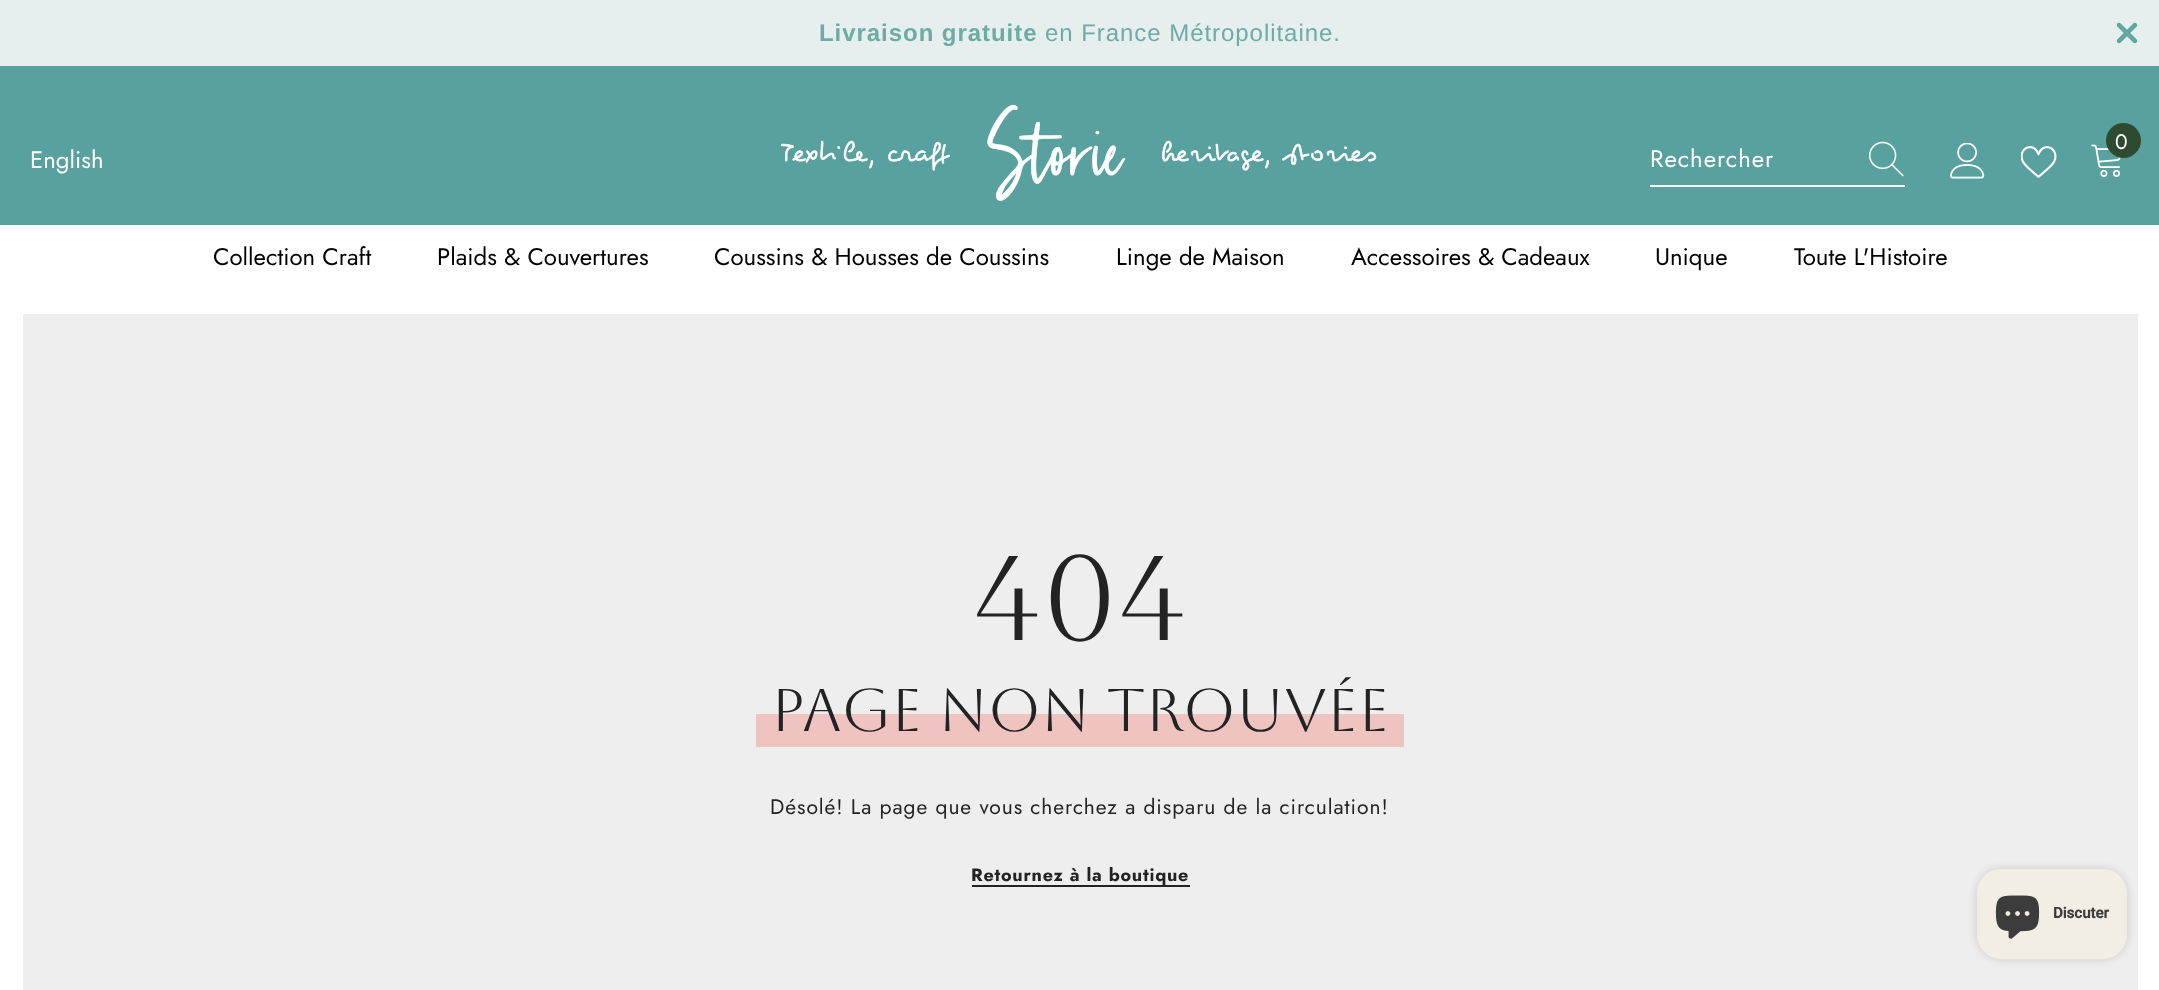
<!DOCTYPE html>
<meta charset="utf-8">
<style>body { margin: 0 } canvas { display: block }</style>
<canvas id="canvas" width="2159" height="990"></canvas>
<img id="img1" src="img_01.png" hidden>
<img id="img2" src="img_02.png" hidden>
<img id="img3" src="img_03.png" hidden>
<img id="img4" src="img_04.png" hidden>
<img id="img5" src="img_05.png" hidden>
<img id="img6" src="img_06.png" hidden>
<img id="img7" src="img_07.png" hidden>
<script>
window.onload = function () {
	const canvas = document.getElementById("canvas");
	const ctx = canvas.getContext("2d");
	ctx.miterLimit = 4;
	ctx.fontKerning = "normal";
	function txt(s, x, y) {
		ctx.fillText(s, x, y);
	}
	function fill(x, y, w, h) {
		ctx.fillRect(x, y, w, h);
	}
	function round(x, y, w, h, r) {
		ctx.beginPath();
		ctx.roundRect(x, y, w, h, r);
		ctx.fill();
	}
	function img(id, x, y, w, h) {
		ctx.drawImage(document.getElementById(id), x, y, w, h);
	}

	ctx.fillStyle = "#FFFFFF";
	fill(0, 0, 2159, 990);
	ctx.fillStyle = "#E6EEEE";
	fill(0, 0, 2159, 66);
	img("img1", 2116, 22, 22, 22);
	ctx.fillStyle = "#59A19E";
	fill(0, 66, 2159, 159);
	img("img2", 780, 104, 597, 97);
	img("img3", 1950, 143, 35, 36);
	img("img4", 2021, 146, 36, 32);
	img("img5", 2091, 144, 30, 33);
	ctx.fillStyle = "#2E4B31";
	ctx.beginPath();
	ctx.arc(2123.5, 140.5, 17.5, 0, Math.PI * 2);
	ctx.fill();
	ctx.fillStyle = "#FFFFFF";
	fill(1650, 185, 255, 2);
	img("img6", 1869, 141, 35, 36);
	ctx.fillStyle = "#EEEEEE";
	fill(23, 314, 2115, 676);
	ctx.fillStyle = "#EFC3C0";
	fill(756, 714, 648, 33);
	ctx.fillStyle = "#232323";
	fill(972, 885, 218, 2);
	ctx.fillStyle = "rgba(0, 0, 0, 0.15)";
	ctx.filter = "blur(4px)";
	ctx.beginPath();
	ctx.roundRect(1977, 869, 150, 90, 24);
	ctx.fill();
	ctx.filter = "none";
	ctx.fillStyle = "#F2EEE3";
	round(1977, 869, 150, 90, 24);
	img("img7", 1995, 895, 45, 44);
	ctx.letterSpacing = "0.95px";
	ctx.font = "bold 24px Liberation Sans";
	ctx.fillStyle = "#6DACA6";
	txt("Livraison gratuite", 819, 41);
	ctx.font = "24px Liberation Sans";
	txt("en France Métropolitaine.", 1045, 41);
	ctx.letterSpacing = "0px";
	ctx.font = "24px Jost";
	ctx.fillStyle = "#FFFFFF";
	txt("English", 30, 168);
	ctx.letterSpacing = "1px";
	ctx.font = "21px Jost";
	txt("0", 2115, 149);
	ctx.letterSpacing = "0.95px";
	ctx.font = "24px Jost";
	txt("Rechercher", 1650, 167);
	ctx.letterSpacing = "0px";
	ctx.fillStyle = "#000000";
	txt("Collection Craft", 213, 265);
	txt("Plaids & Couvertures", 437, 265);
	txt("Coussins & Housses de Coussins", 714, 265);
	txt("Linge de Maison", 1116, 265);
	txt("Accessoires & Cadeaux", 1351, 265);
	txt("Unique", 1655, 265);
	txt("Toute L'Histoire", 1794, 265);
	ctx.font = "120px Aboreto";
	ctx.fillStyle = "#232323";
	txt("404", 973, 640);
	ctx.font = "60px Aboreto";
	txt("Page non trouvée", 771, 731);
	ctx.letterSpacing = "0.95px";
	ctx.font = "21px Jost";
	txt("Désolé! La page que vous cherchez a disparu de la circulation!", 770, 814);
	ctx.letterSpacing = "0.75px";
	ctx.font = "bold 18px Jost";
	txt("Retournez à la boutique", 971, 881);
	ctx.letterSpacing = "0px";
	ctx.font = "bold 15px Roboto";
	ctx.fillStyle = "#3C3C3C";
	txt("Discuter", 2053, 918);
};
</script>
